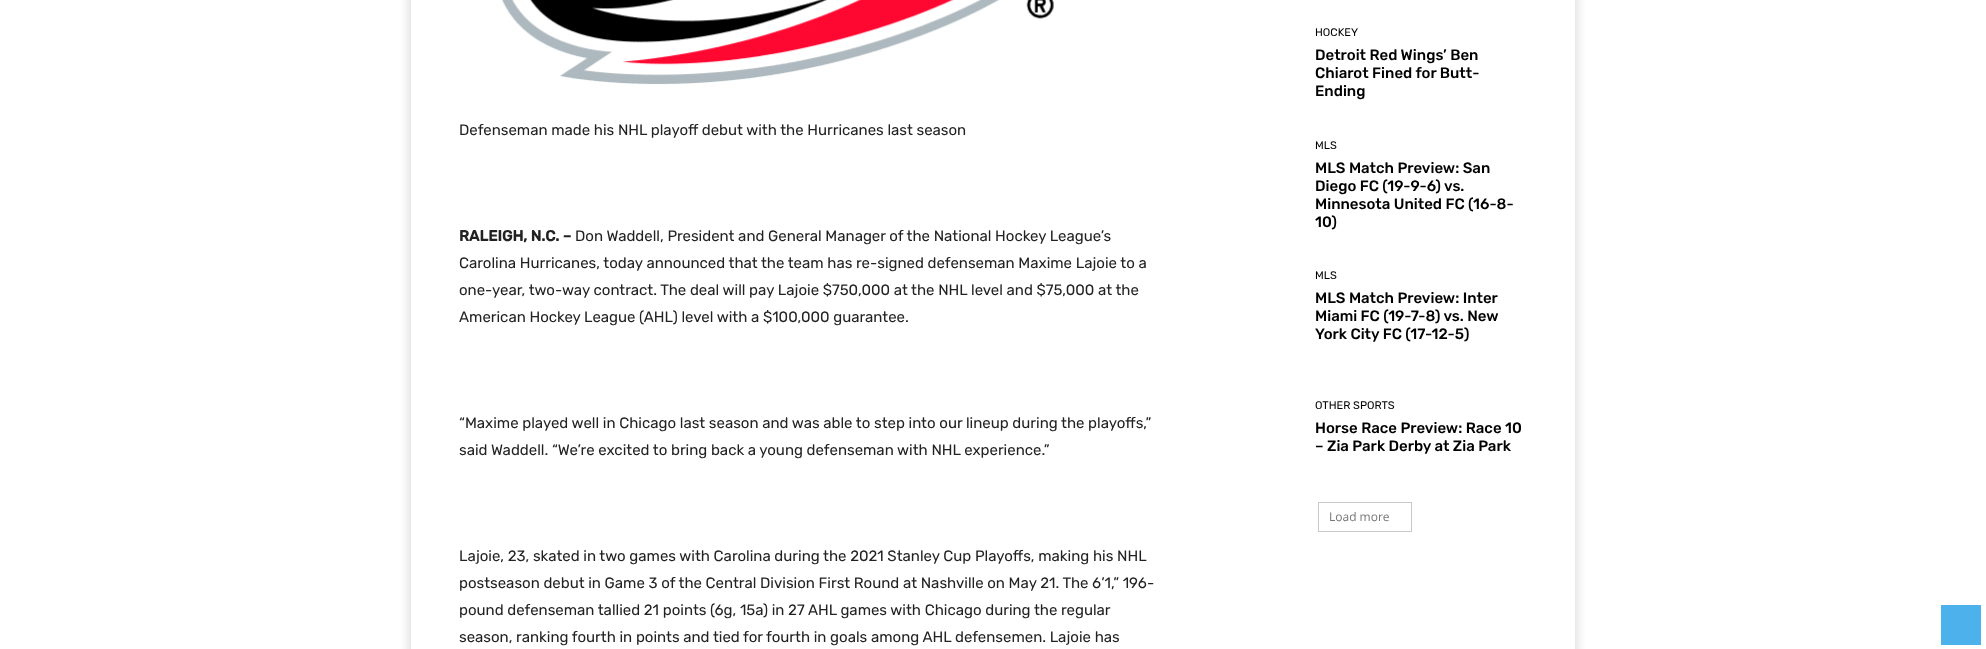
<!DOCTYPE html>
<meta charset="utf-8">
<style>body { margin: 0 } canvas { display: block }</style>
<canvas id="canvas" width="1986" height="649"></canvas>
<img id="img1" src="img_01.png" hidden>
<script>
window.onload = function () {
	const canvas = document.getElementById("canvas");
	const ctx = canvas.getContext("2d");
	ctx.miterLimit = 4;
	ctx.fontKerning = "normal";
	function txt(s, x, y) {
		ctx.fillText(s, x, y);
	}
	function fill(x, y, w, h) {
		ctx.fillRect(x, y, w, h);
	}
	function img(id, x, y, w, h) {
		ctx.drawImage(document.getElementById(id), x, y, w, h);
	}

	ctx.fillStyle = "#FFFFFF";
	fill(0, 0, 1986, 649);
	ctx.save();
	ctx.beginPath();
	ctx.moveTo(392, 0);
	ctx.lineTo(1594, 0);
	ctx.lineTo(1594, 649);
	ctx.lineTo(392, 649);
	ctx.closePath();
	ctx.moveTo(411, -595);
	ctx.lineTo(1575, -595);
	ctx.lineTo(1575, 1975);
	ctx.lineTo(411, 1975);
	ctx.closePath();
	ctx.clip("evenodd");
	ctx.fillStyle = "rgba(0, 0, 0, 0.12)";
	ctx.filter = "blur(5px)";
	ctx.beginPath();
	ctx.rect(408, -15, 1170, 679);
	ctx.fill();
	ctx.filter = "none";
	ctx.restore();
	img("img1", 501, 0, 553, 85);
	ctx.strokeStyle = "#C9C9C9";
	ctx.strokeRect(1318.5, 502.5, 93, 29);
	ctx.fillStyle = "#4DB2EC";
	fill(1941, 605, 40, 40);
	ctx.font = "15px Rubik";
	ctx.fillStyle = "#222222";
	txt("Defenseman made his NHL playoff debut with the Hurricanes last season", 459, 135);
	ctx.font = "bold 15px Rubik";
	txt("RALEIGH, N.C. –", 459, 241);
	ctx.font = "15px Rubik";
	txt("Don Waddell, President and General Manager of the National Hockey League’s", 575, 241);
	txt("Carolina Hurricanes, today announced that the team has re-signed defenseman Maxime Lajoie to a", 459, 268);
	txt("one-year, two-way contract. The deal will pay Lajoie $750,000 at the NHL level and $75,000 at the", 459, 295);
	txt("American Hockey League (AHL) level with a $100,000 guarantee.", 459, 322);
	txt("“Maxime played well in Chicago last season and was able to step into our lineup during the playoffs,”", 459, 428);
	txt("said Waddell. “We’re excited to bring back a young defenseman with NHL experience.”", 459, 455);
	txt("Lajoie, 23, skated in two games with Carolina during the 2021 Stanley Cup Playoffs, making his NHL", 459, 561);
	txt("postseason debut in Game 3 of the Central Division First Round at Nashville on May 21. The 6’1,” 196-", 459, 588);
	txt("pound defenseman tallied 21 points (6g, 15a) in 27 AHL games with Chicago during the regular", 459, 615);
	txt("season, ranking fourth in points and tied for fourth in goals among AHL defensemen. Lajoie has", 459, 642);
	ctx.font = "11px Rubik";
	ctx.fillStyle = "#000000";
	txt("HOCKEY", 1315, 36);
	ctx.font = "500 15px Rubik";
	txt("Detroit Red Wings’ Ben", 1315, 60);
	txt("Chiarot Fined for Butt-", 1315, 78);
	txt("Ending", 1315, 96);
	ctx.font = "11px Rubik";
	txt("MLS", 1315, 149);
	ctx.font = "500 15px Rubik";
	txt("MLS Match Preview: San", 1315, 173);
	txt("Diego FC (19-9-6) vs.", 1315, 191);
	txt("Minnesota United FC (16-8-", 1315, 209);
	txt("10)", 1315, 227);
	ctx.font = "11px Rubik";
	txt("MLS", 1315, 279);
	ctx.font = "500 15px Rubik";
	txt("MLS Match Preview: Inter", 1315, 303);
	txt("Miami FC (19-7-8) vs. New", 1315, 321);
	txt("York City FC (17-12-5)", 1315, 339);
	ctx.font = "11px Rubik";
	txt("OTHER SPORTS", 1315, 409);
	ctx.font = "500 15px Rubik";
	txt("Horse Race Preview: Race 10", 1315, 433);
	txt("– Zia Park Derby at Zia Park", 1315, 451);
	ctx.font = "12px Open Sans";
	ctx.fillStyle = "#767676";
	txt("Load more", 1329, 521);
};
</script>
